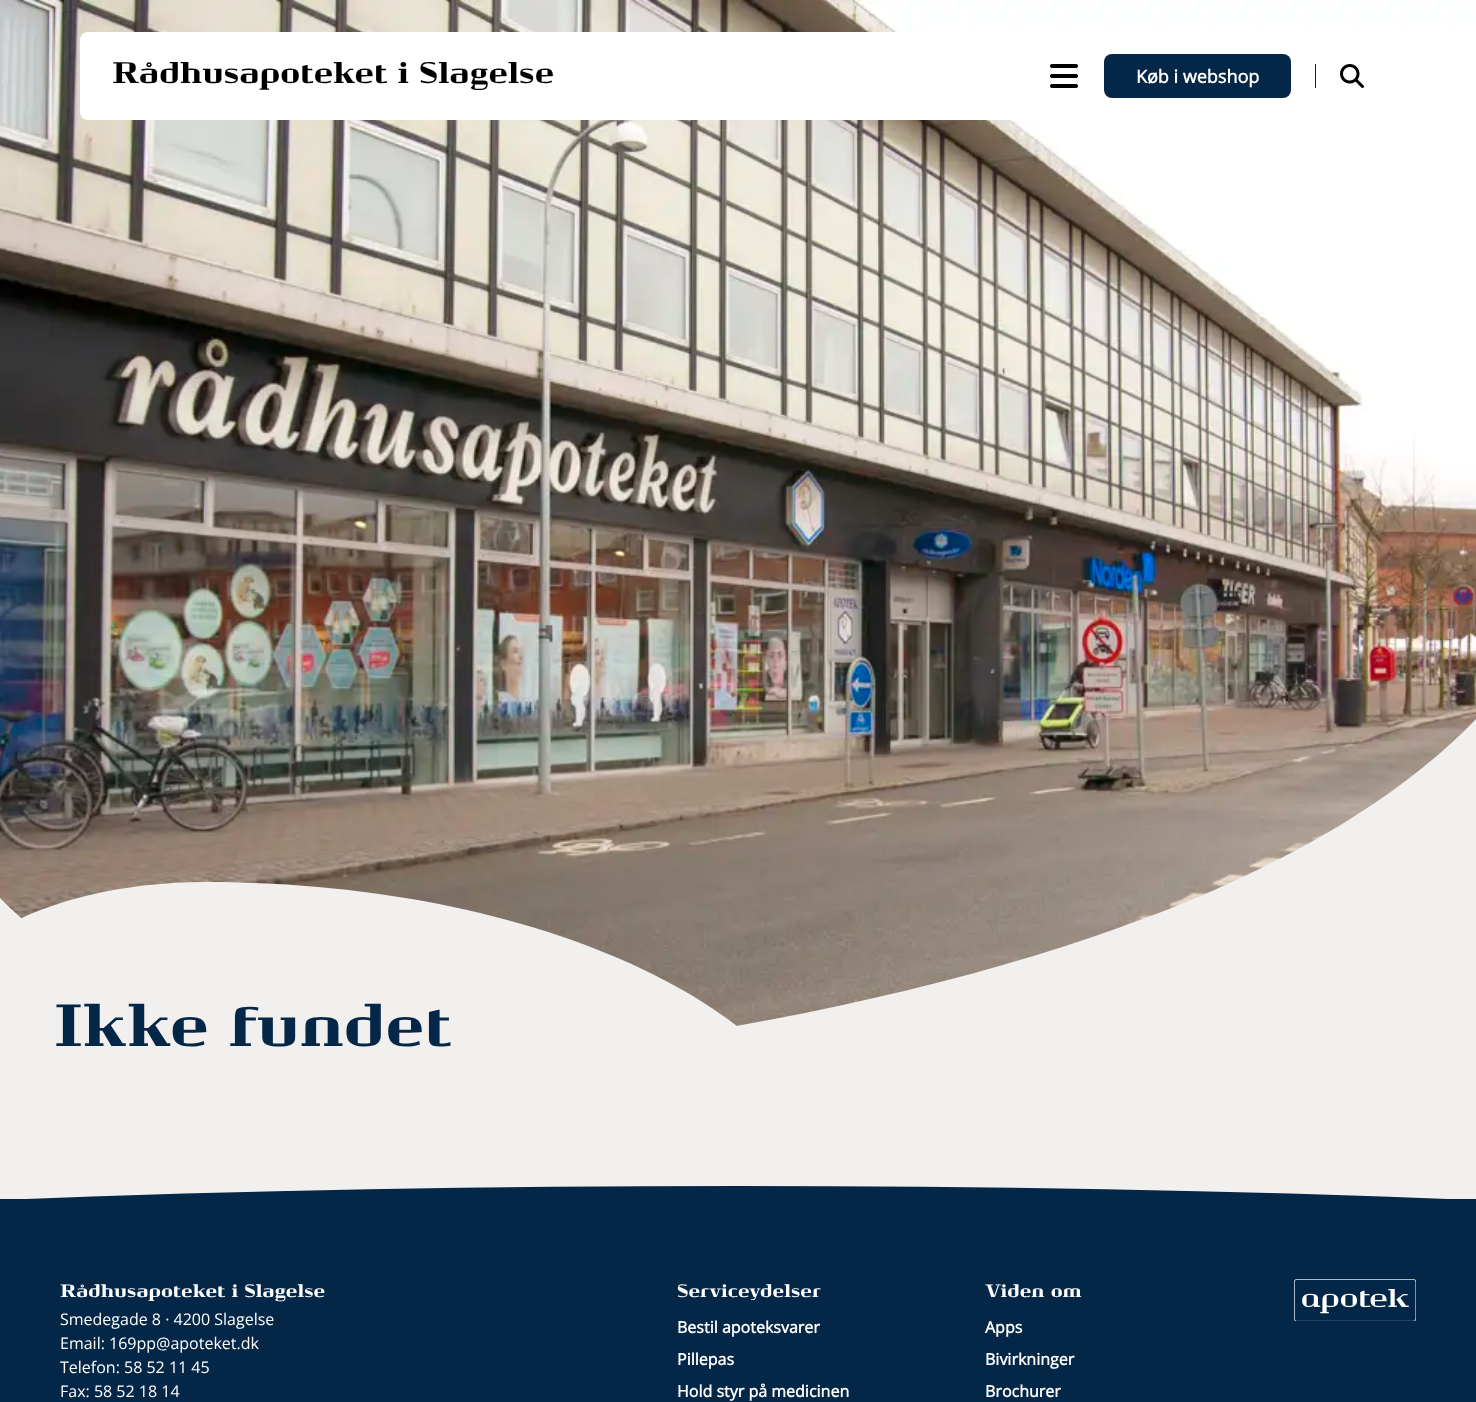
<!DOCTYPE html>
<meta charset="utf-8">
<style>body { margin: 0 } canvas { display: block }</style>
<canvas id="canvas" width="1476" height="1402"></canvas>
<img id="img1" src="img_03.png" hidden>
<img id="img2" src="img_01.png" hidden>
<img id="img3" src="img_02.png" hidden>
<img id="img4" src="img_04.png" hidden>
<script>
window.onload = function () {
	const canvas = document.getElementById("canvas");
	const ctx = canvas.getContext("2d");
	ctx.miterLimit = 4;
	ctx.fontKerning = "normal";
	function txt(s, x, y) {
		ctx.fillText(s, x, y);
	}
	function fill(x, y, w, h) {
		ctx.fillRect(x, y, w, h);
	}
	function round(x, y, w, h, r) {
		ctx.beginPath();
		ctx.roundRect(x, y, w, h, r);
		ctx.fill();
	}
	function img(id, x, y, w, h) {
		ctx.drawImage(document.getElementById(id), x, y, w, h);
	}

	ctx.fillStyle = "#F2F0EF";
	fill(0, 0, 1476, 1402);
	img("img1", 0, 0, 1476, 1026);
	ctx.fillStyle = "#FFFFFF";
	round(80, 32, 1316, 88, 8);
	img("img2", 1050, 64, 28, 24);
	ctx.fillStyle = "#042747";
	round(1104, 54, 187, 44, 8);
	ctx.fillStyle = "#222222";
	fill(1315, 64, 1, 24);
	img("img3", 1340, 64, 24, 24);
	ctx.fillStyle = "#F2F0EF";
	ctx.beginPath();
	ctx.moveTo(690, 1034);
	ctx.bezierCurveTo(403, 1081, 160, 1058, 0, 898);
	ctx.lineTo(0, 1055);
	ctx.lineTo(1476, 1055);
	ctx.lineTo(1476, 719);
	ctx.bezierCurveTo(1351, 849, 1107, 965, 690, 1034);
	ctx.closePath();
	ctx.fill();
	ctx.beginPath();
	ctx.moveTo(206, 882);
	ctx.bezierCurveTo(555, 882, 838, 1023, 838, 1197);
	ctx.lineTo(838, 1332);
	ctx.lineTo(-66, 1332);
	ctx.lineTo(-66, 1017);
	ctx.bezierCurveTo(-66, 943, 56, 882, 206, 882);
	ctx.closePath();
	ctx.fill();
	ctx.fillStyle = "#042747";
	fill(0, 1199, 1476, 203);
	ctx.beginPath();
	ctx.moveTo(0, 1200);
	ctx.lineTo(1474, 1200);
	ctx.bezierCurveTo(1229, 1190, 983, 1186, 737, 1186);
	ctx.bezierCurveTo(491, 1186, 246, 1190, 0, 1200);
	ctx.closePath();
	ctx.fill();
	img("img4", 1294, 1279, 122, 42);
	ctx.font = "900 30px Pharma";
	ctx.fillStyle = "#000000";
	txt("Rådhusapoteket i Slagelse", 112, 83);
	ctx.font = "bold 18px Open Sans";
	ctx.fillStyle = "#FFFFFF";
	txt("Køb i webshop", 1136, 83);
	ctx.font = "900 60px Pharma";
	ctx.fillStyle = "#042747";
	txt("Ikke fundet", 54, 1046);
	ctx.font = "900 18px Pharma";
	ctx.fillStyle = "#FFFFFF";
	txt("Rådhusapoteket i Slagelse", 60, 1297);
	ctx.font = "16px Open Sans";
	txt("Smedegade 8 · 4200 Slagelse", 60, 1325);
	txt("Email: 169pp@apoteket.dk", 60, 1349);
	txt("Telefon: 58 52 11 45", 60, 1373);
	txt("Fax: 58 52 18 14", 60, 1397);
	ctx.font = "900 18px Pharma";
	txt("Serviceydelser", 677, 1297);
	ctx.font = "bold 16px Open Sans";
	txt("Bestil apoteksvarer", 677, 1333);
	txt("Pillepas", 677, 1365);
	txt("Hold styr på medicinen", 677, 1397);
	ctx.font = "900 18px Pharma";
	txt("Viden om", 985, 1297);
	ctx.font = "bold 16px Open Sans";
	txt("Apps", 985, 1333);
	txt("Bivirkninger", 985, 1365);
	txt("Brochurer", 985, 1397);
};
</script>
